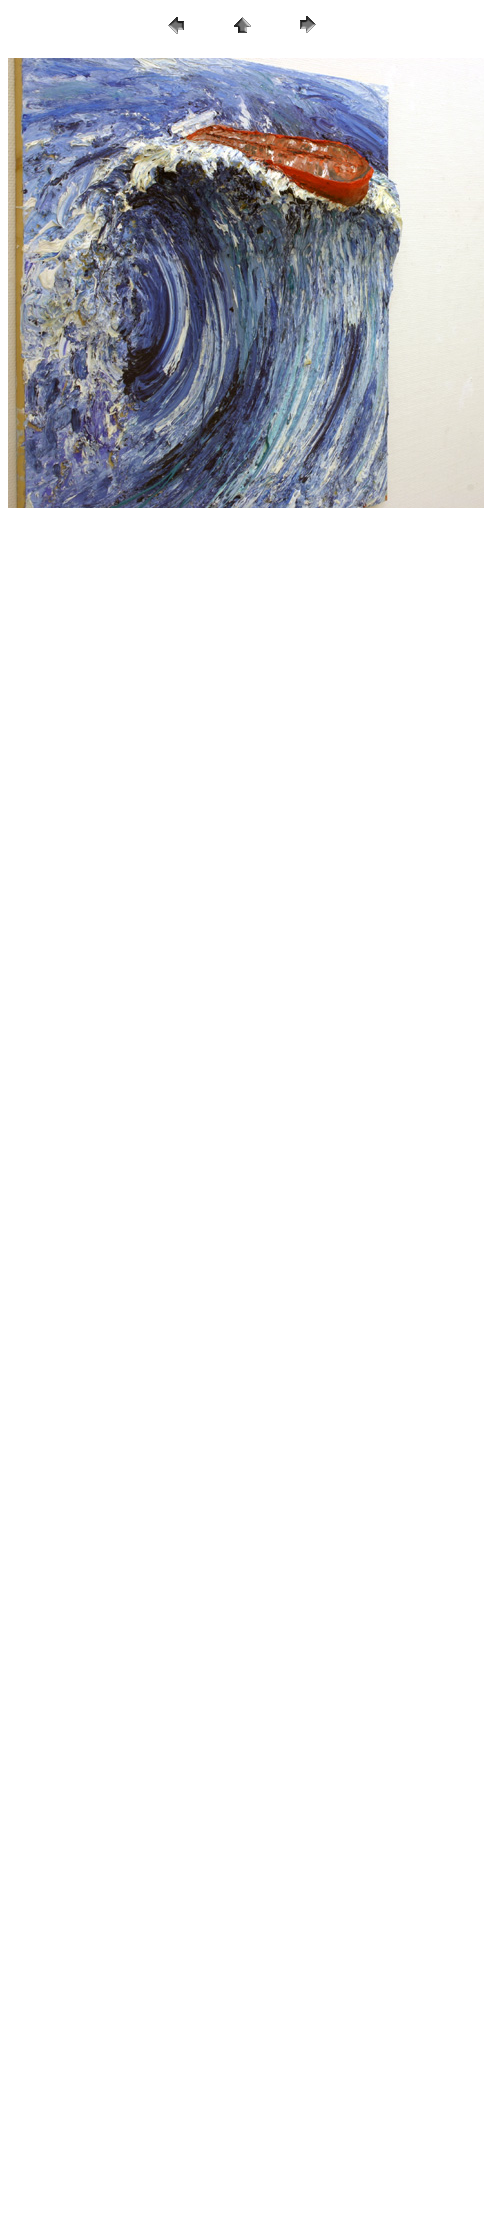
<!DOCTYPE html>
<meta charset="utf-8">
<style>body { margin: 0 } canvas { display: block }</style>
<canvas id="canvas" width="484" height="2213"></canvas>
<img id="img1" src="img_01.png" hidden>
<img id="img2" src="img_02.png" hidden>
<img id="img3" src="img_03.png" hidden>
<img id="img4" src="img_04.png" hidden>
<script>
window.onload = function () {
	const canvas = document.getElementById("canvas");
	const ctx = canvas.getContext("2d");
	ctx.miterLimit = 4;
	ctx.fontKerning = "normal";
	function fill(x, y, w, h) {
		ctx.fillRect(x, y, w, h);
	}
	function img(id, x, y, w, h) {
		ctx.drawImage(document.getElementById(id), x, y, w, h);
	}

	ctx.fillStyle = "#FFFFFF";
	fill(0, 0, 484, 2213);
	img("img1", 168, 17, 16, 17);
	img("img2", 234, 17, 17, 16);
	img("img3", 300, 16, 16, 17);
	img("img4", 8, 58, 476, 450);
};
</script>
